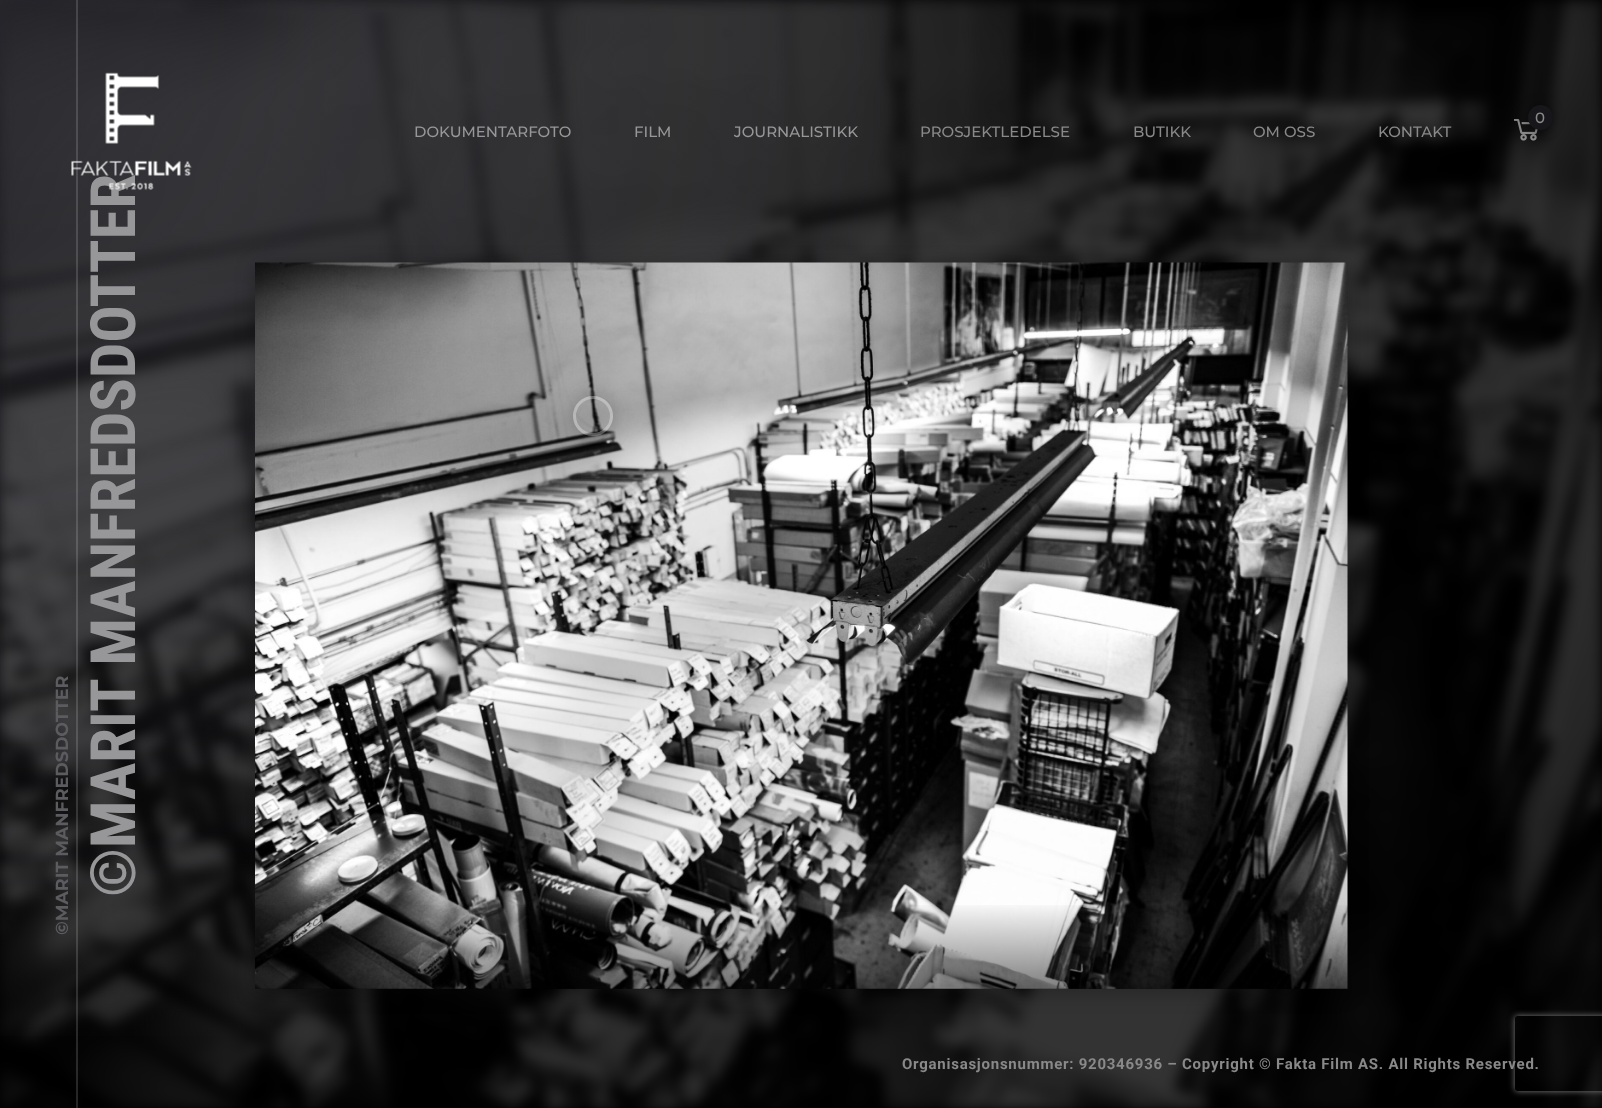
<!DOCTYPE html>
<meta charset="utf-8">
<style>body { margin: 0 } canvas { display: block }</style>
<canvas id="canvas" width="1602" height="1108"></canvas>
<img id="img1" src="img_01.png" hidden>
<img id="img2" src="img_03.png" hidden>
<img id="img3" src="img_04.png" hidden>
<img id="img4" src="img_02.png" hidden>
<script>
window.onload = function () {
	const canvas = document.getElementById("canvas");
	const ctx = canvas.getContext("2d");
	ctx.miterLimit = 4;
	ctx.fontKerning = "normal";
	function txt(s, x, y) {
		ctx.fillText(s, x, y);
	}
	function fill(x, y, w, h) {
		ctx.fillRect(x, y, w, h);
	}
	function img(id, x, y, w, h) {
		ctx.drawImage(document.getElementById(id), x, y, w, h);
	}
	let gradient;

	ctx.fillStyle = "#000000";
	fill(0, 0, 1602, 1108);
	gradient = ctx.createRadialGradient(0, 0, 0, 0, 0, 1568);
	gradient.addColorStop(0, "#28282E");
	gradient.addColorStop(0.7, "#000000");
	ctx.fillStyle = gradient;
	fill(0, 0, 1036, 1036);
	img("img1", 0, 0, 1602, 1108);
	img("img2", 1514, 119, 24, 22);
	ctx.fillStyle = "rgba(0, 0, 0, 0.45)";
	ctx.filter = "blur(6px)";
	ctx.beginPath();
	ctx.roundRect(1528, 105, 25, 25, 12.5);
	ctx.fill();
	ctx.filter = "none";
	ctx.fillStyle = "#17171B";
	ctx.beginPath();
	ctx.arc(1540.5, 117.5, 12.5, 0, Math.PI * 2);
	ctx.fill();
	ctx.fillStyle = "rgba(255, 255, 255, 0.15)";
	fill(76, 0, 2, 1108);
	ctx.fillStyle = "rgba(0, 0, 0, 0.25)";
	ctx.filter = "blur(9.5px)";
	ctx.beginPath();
	ctx.rect(255, 266, 1093, 727);
	ctx.fill();
	ctx.filter = "none";
	img("img3", 255, 262, 1093, 727);
	gradient = ctx.createLinearGradient(801, 901, 801, 989);
	gradient.addColorStop(0, "rgba(0, 0, 0, 0)");
	gradient.addColorStop(1, "rgba(0, 0, 0, 0.5)");
	ctx.fillStyle = gradient;
	fill(255, 905, 1093, 84);
	ctx.save();
	ctx.beginPath();
	ctx.moveTo(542, 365);
	ctx.lineTo(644, 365);
	ctx.lineTo(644, 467);
	ctx.lineTo(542, 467);
	ctx.closePath();
	ctx.moveTo(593, 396);
	ctx.bezierCurveTo(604, 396, 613, 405, 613, 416);
	ctx.bezierCurveTo(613, 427, 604, 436, 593, 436);
	ctx.bezierCurveTo(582, 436, 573, 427, 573, 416);
	ctx.bezierCurveTo(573, 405, 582, 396, 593, 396);
	ctx.closePath();
	ctx.clip("evenodd");
	ctx.fillStyle = "rgba(0, 0, 0, 0.2)";
	ctx.filter = "blur(10px)";
	ctx.beginPath();
	ctx.roundRect(573, 396, 40, 40, 20);
	ctx.fill();
	ctx.filter = "none";
	ctx.restore();
	ctx.beginPath();
	ctx.arc(593, 416, 18.5, 0, Math.PI * 2);
	ctx.strokeStyle = "rgba(255, 255, 255, 0.3)";
	ctx.lineWidth = 3;
	ctx.stroke();
	ctx.save();
	ctx.beginPath();
	ctx.moveTo(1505, 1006);
	ctx.lineTo(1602, 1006);
	ctx.lineTo(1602, 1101);
	ctx.lineTo(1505, 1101);
	ctx.closePath();
	ctx.moveTo(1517.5, 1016);
	ctx.lineTo(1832.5, 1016);
	ctx.bezierCurveTo(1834, 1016, 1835, 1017, 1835, 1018.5);
	ctx.lineTo(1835, 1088.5);
	ctx.bezierCurveTo(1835, 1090, 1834, 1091, 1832.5, 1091);
	ctx.lineTo(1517.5, 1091);
	ctx.bezierCurveTo(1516, 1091, 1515, 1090, 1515, 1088.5);
	ctx.lineTo(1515, 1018.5);
	ctx.bezierCurveTo(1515, 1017, 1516, 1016, 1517.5, 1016);
	ctx.closePath();
	ctx.clip("evenodd");
	ctx.fillStyle = "#808080";
	ctx.filter = "blur(3px)";
	ctx.beginPath();
	ctx.roundRect(1515, 1016, 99, 75, 2.5);
	ctx.fill();
	ctx.filter = "none";
	ctx.restore();
	ctx.font = "500 15px Montserrat";
	ctx.fillStyle = "#898989";
	txt("0", 1535, 123);
	ctx.fillStyle = "#979799";
	txt("DOKUMENTARFOTO", 414, 137);
	txt("FILM", 634, 137);
	txt("JOURNALISTIKK", 734, 137);
	ctx.fillStyle = "#898989";
	txt("PROSJEKTLEDELSE", 920, 137);
	txt("BUTIKK", 1133, 137);
	txt("OM OSS", 1253, 137);
	txt("KONTAKT", 1378, 137);
	ctx.font = "bold 17.5px Montserrat";
	ctx.fillStyle = "#5C5C60";
	ctx.save();
	ctx.translate(68, 935);
	ctx.rotate(-90 * Math.PI / 180);
	ctx.fillText("©MARIT MANFREDSDOTTER", 0, 0);
	ctx.restore();
	ctx.font = "bold 62.5px Roboto Condensed";
	ctx.fillStyle = "#979799";
	ctx.save();
	ctx.translate(135, 897);
	ctx.rotate(-90 * Math.PI / 180);
	ctx.fillText("©MARIT MANFREDSDOTTER", 0, 0);
	ctx.restore();
	img("img4", 71, 72, 121, 118);
	ctx.letterSpacing = "0.75px";
	ctx.font = "bold 15px Roboto";
	ctx.fillStyle = "#898989";
	txt("Organisasjonsnummer: 920346936 – Copyright © Fakta Film AS. All Rights Reserved.", 902, 1069);
};
</script>
